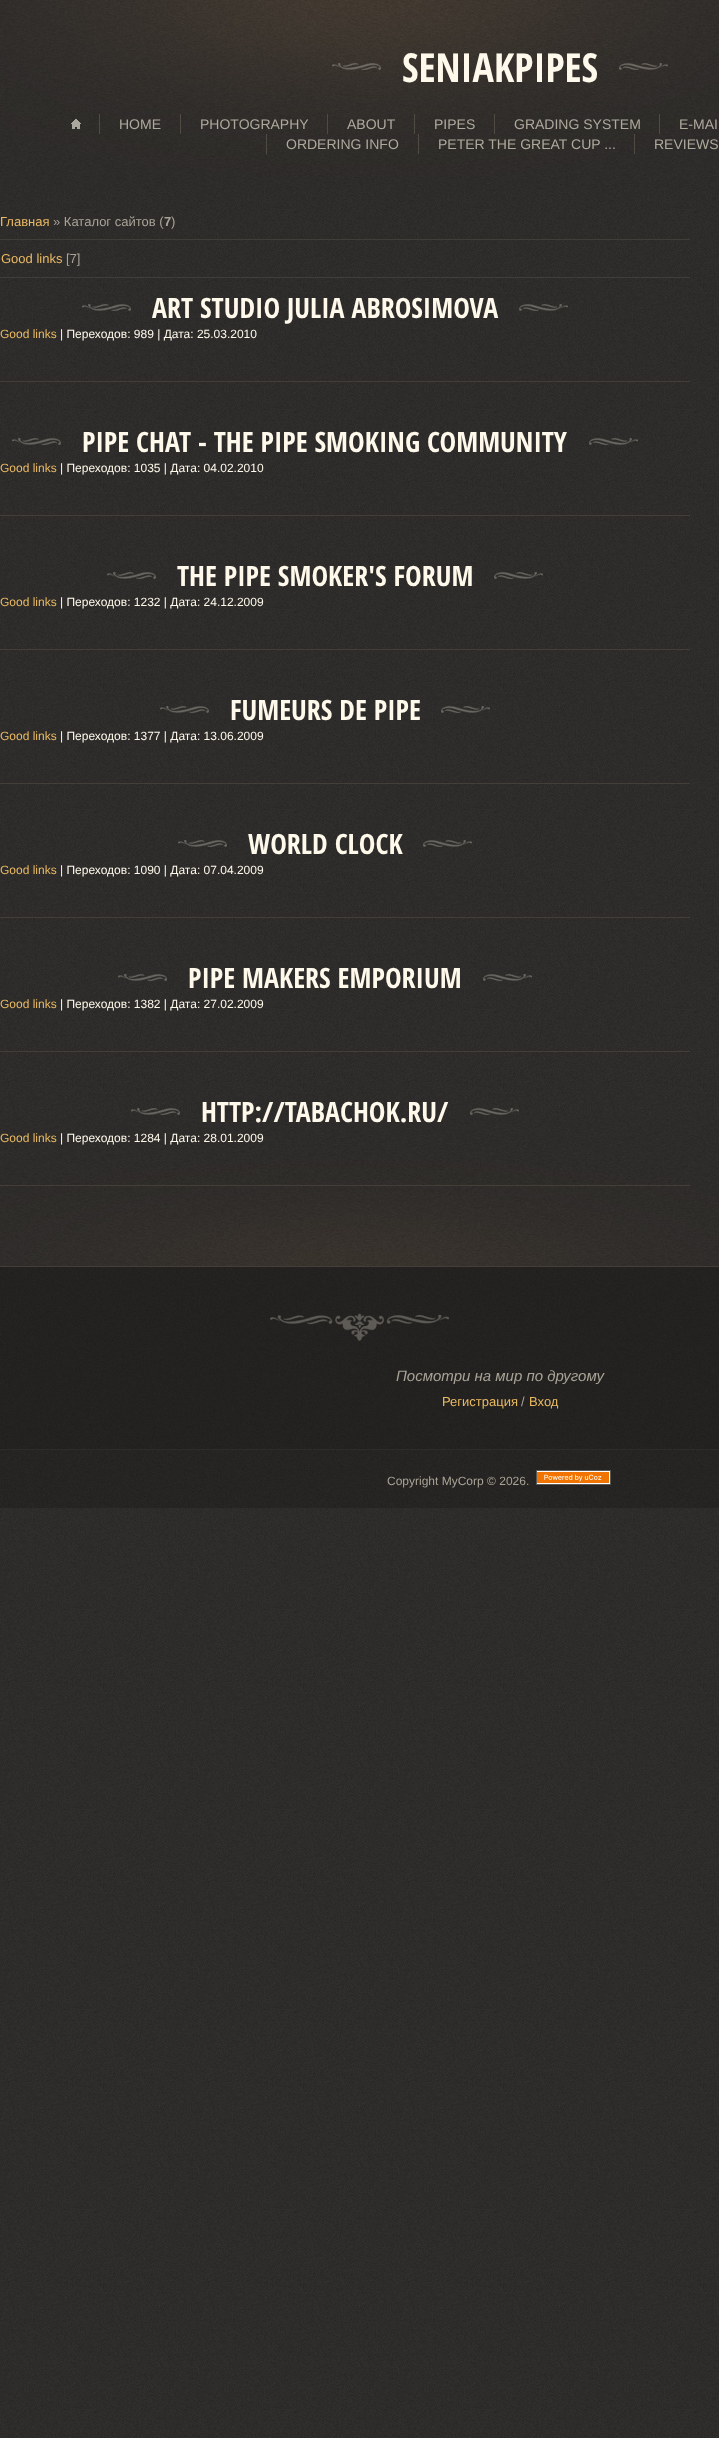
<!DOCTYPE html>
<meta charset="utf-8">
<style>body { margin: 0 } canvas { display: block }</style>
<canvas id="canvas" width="719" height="2438"></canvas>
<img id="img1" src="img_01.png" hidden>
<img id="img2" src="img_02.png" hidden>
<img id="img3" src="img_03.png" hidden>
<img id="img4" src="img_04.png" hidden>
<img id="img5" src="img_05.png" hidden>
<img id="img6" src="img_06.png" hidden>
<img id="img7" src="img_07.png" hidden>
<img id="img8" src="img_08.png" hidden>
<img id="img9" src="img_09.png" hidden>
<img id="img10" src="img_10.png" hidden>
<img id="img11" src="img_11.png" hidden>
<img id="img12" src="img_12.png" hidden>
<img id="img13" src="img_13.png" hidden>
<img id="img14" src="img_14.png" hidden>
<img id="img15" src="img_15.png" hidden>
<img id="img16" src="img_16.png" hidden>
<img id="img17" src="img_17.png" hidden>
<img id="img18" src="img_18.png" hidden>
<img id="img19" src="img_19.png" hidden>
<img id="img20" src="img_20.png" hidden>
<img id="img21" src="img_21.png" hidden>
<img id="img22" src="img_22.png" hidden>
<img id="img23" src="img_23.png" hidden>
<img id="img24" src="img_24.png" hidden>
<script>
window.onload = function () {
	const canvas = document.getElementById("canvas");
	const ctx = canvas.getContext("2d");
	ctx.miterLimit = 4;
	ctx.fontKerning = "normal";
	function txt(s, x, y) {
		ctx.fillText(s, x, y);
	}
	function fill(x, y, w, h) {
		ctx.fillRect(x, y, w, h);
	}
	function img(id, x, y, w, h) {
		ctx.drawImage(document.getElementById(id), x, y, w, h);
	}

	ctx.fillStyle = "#FFFFFF";
	fill(0, 0, 719, 2438);
	img("img1", 0, 190, 719, 2248);
	img("img2", 0, 0, 719, 190);
	img("img3", 332, 63, 49, 7);
	img("img4", 619, 63, 49, 7);
	img("img5", 71, 119, 10, 10);
	ctx.fillStyle = "#4F4A42";
	fill(99, 114, 1, 20);
	fill(180, 114, 1, 20);
	fill(327, 114, 1, 20);
	fill(414, 114, 1, 20);
	fill(494, 114, 1, 20);
	fill(659, 114, 1, 20);
	fill(266, 134, 1, 20);
	fill(418, 134, 1, 20);
	fill(634, 134, 1, 20);
	img("img6", 0, 1116, 719, 150);
	ctx.fillStyle = "#413D39";
	fill(0, 239, 690, 1);
	fill(0, 277, 690, 1);
	ctx.fillStyle = "#433E38";
	fill(0, 381, 690, 1);
	img("img7", 82, 304, 49, 7);
	img("img8", 519, 304, 49, 7);
	fill(0, 515, 690, 1);
	img("img9", 12, 438, 49, 7);
	img("img10", 589, 438, 49, 7);
	fill(0, 649, 690, 1);
	img("img11", 107, 572, 49, 7);
	img("img12", 494, 572, 49, 7);
	fill(0, 783, 690, 1);
	img("img13", 160, 706, 49, 7);
	img("img14", 441, 706, 49, 7);
	fill(0, 917, 690, 1);
	img("img15", 178, 840, 49, 7);
	img("img16", 423, 840, 49, 7);
	fill(0, 1051, 690, 1);
	img("img17", 118, 974, 49, 7);
	img("img18", 483, 974, 49, 7);
	fill(0, 1185, 690, 1);
	img("img19", 131, 1108, 49, 7);
	img("img20", 470, 1108, 49, 7);
	img("img21", 0, 1267, 719, 182);
	fill(0, 1266, 719, 1);
	img("img22", 270, 1307, 179, 34);
	img("img23", 0, 1450, 719, 58);
	ctx.fillStyle = "#2E2B29";
	fill(0, 1449, 719, 1);
	img("img24", 536, 1470, 75, 15);
	ctx.font = "bold 40px Open Sans Condensed";
	ctx.fillStyle = "#FFF9EB";
	txt("SENIAKPIPES", 402, 82);
	ctx.font = "14px Liberation Sans";
	ctx.fillStyle = "#AFA99D";
	txt("HOME", 119, 129);
	txt("PHOTOGRAPHY", 200, 129);
	txt("ABOUT", 347, 129);
	txt("PIPES", 434, 129);
	txt("GRADING SYSTEM", 514, 129);
	txt("E-MAI", 679, 129);
	txt("ORDERING INFO", 286, 149);
	txt("PETER THE GREAT CUP ...", 438, 149);
	txt("REVIEWS", 654, 149);
	ctx.font = "13px Liberation Sans";
	ctx.fillStyle = "#EBBA64";
	txt("Главная", 0, 226);
	ctx.fillStyle = "#A9A397";
	txt("» Каталог сайтов (", 53, 226);
	ctx.font = "bold 13px Liberation Sans";
	txt("7", 164, 226);
	ctx.font = "13px Liberation Sans";
	txt(")", 171, 226);
	ctx.fillStyle = "#EBBA64";
	txt("Good links", 1, 263);
	ctx.fillStyle = "#A9A397";
	txt("[7]", 66, 263);
	ctx.font = "bold 28px Open Sans Condensed";
	ctx.fillStyle = "#FFF9EB";
	txt("ART STUDIO JULIA ABROSIMOVA", 152, 318);
	ctx.font = "12px Liberation Sans";
	ctx.fillStyle = "#EBBA64";
	txt("Good links", 0, 338);
	ctx.fillStyle = "#FFF9EB";
	txt("| Переходов: 989 | Дата: 25.03.2010", 60, 338);
	ctx.font = "bold 28px Open Sans Condensed";
	txt("PIPE CHAT - THE PIPE SMOKING COMMUNITY", 82, 452);
	ctx.font = "12px Liberation Sans";
	ctx.fillStyle = "#EBBA64";
	txt("Good links", 0, 472);
	ctx.fillStyle = "#FFF9EB";
	txt("| Переходов: 1035 | Дата: 04.02.2010", 60, 472);
	ctx.font = "bold 28px Open Sans Condensed";
	txt("THE PIPE SMOKER'S FORUM", 177, 586);
	ctx.font = "12px Liberation Sans";
	ctx.fillStyle = "#EBBA64";
	txt("Good links", 0, 606);
	ctx.fillStyle = "#FFF9EB";
	txt("| Переходов: 1232 | Дата: 24.12.2009", 60, 606);
	ctx.font = "bold 28px Open Sans Condensed";
	txt("FUMEURS DE PIPE", 230, 720);
	ctx.font = "12px Liberation Sans";
	ctx.fillStyle = "#EBBA64";
	txt("Good links", 0, 740);
	ctx.fillStyle = "#FFF9EB";
	txt("| Переходов: 1377 | Дата: 13.06.2009", 60, 740);
	ctx.font = "bold 28px Open Sans Condensed";
	txt("WORLD CLOCK", 248, 854);
	ctx.font = "12px Liberation Sans";
	ctx.fillStyle = "#EBBA64";
	txt("Good links", 0, 874);
	ctx.fillStyle = "#FFF9EB";
	txt("| Переходов: 1090 | Дата: 07.04.2009", 60, 874);
	ctx.font = "bold 28px Open Sans Condensed";
	txt("PIPE MAKERS EMPORIUM", 188, 988);
	ctx.font = "12px Liberation Sans";
	ctx.fillStyle = "#EBBA64";
	txt("Good links", 0, 1008);
	ctx.fillStyle = "#FFF9EB";
	txt("| Переходов: 1382 | Дата: 27.02.2009", 60, 1008);
	ctx.font = "bold 28px Open Sans Condensed";
	txt("HTTP://TABACHOK.RU/", 201, 1122);
	ctx.font = "12px Liberation Sans";
	ctx.fillStyle = "#EBBA64";
	txt("Good links", 0, 1142);
	ctx.fillStyle = "#FFF9EB";
	txt("| Переходов: 1284 | Дата: 28.01.2009", 60, 1142);
	ctx.font = "italic 15px Liberation Sans";
	ctx.fillStyle = "#A9A397";
	txt("Посмотри на мир по другому", 396, 1381);
	ctx.font = "13px Liberation Sans";
	ctx.fillStyle = "#EBBA64";
	txt("Регистрация", 442, 1406);
	ctx.fillStyle = "#A9A397";
	txt("/", 521, 1406);
	ctx.fillStyle = "#EBBA64";
	txt("Вход", 529, 1406);
	ctx.font = "12px Liberation Sans";
	ctx.fillStyle = "#A9A397";
	txt("Copyright MyCorp © 2026.", 387, 1485);
};
</script>
